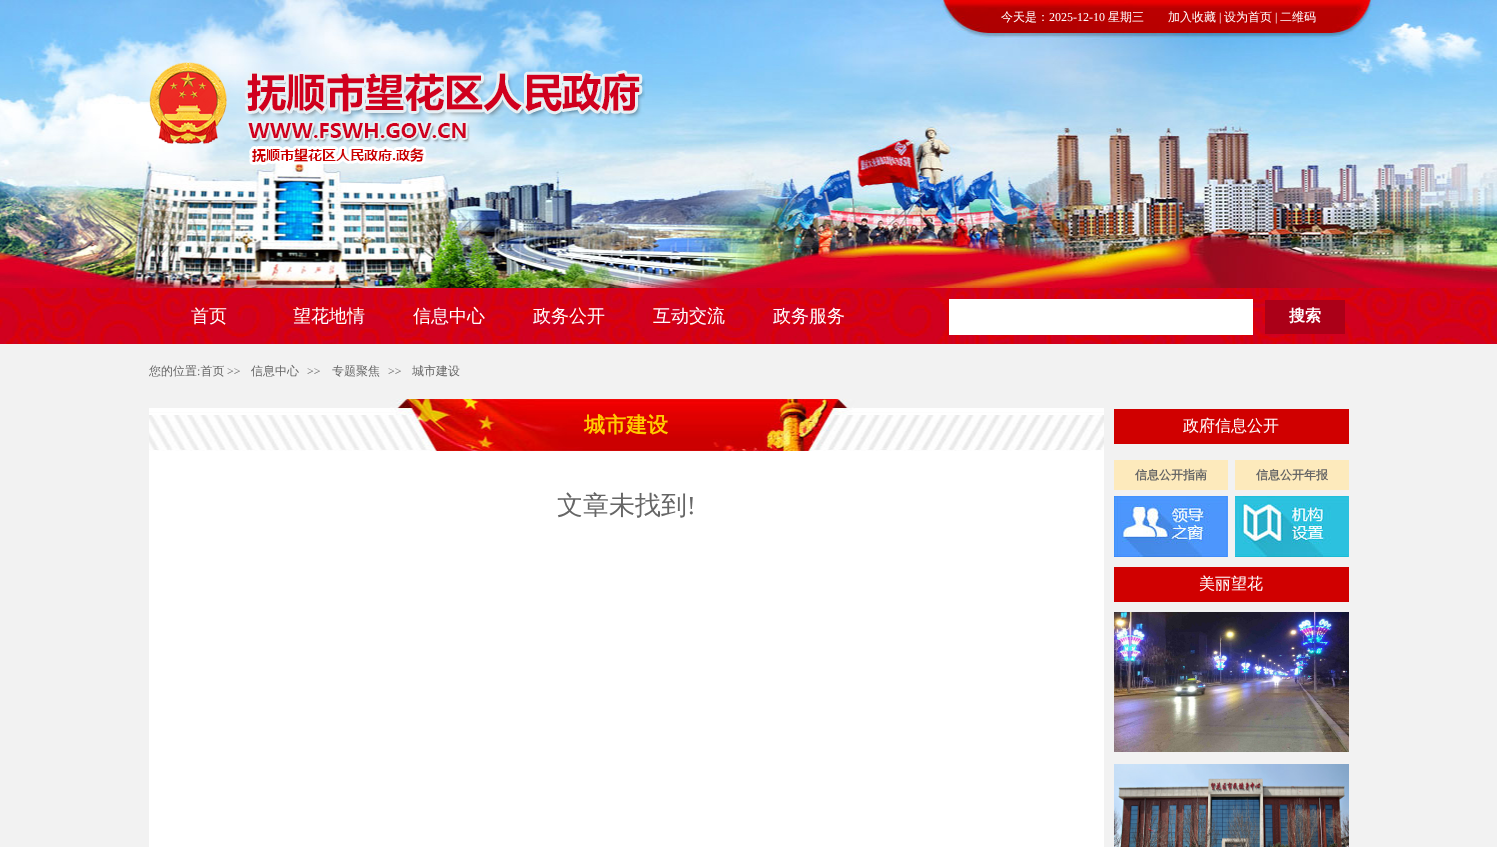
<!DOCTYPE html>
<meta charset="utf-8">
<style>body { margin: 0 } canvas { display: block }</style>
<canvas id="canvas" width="1497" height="847"></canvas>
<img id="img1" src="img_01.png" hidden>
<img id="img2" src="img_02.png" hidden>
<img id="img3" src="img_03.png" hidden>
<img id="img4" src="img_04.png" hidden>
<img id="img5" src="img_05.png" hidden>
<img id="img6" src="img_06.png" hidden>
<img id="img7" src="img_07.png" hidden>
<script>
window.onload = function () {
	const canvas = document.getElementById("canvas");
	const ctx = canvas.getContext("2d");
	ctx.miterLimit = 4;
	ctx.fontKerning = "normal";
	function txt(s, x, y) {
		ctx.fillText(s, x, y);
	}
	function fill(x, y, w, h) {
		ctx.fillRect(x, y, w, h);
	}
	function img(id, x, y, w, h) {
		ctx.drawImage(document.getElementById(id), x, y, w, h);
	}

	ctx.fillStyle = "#F2F2F2";
	fill(0, 0, 1497, 847);
	img("img1", 0, 0, 1497, 344);
	img("img2", 149, 62, 496, 103);
	ctx.fillStyle = "#FFFFFF";
	fill(949, 299, 304, 36);
	ctx.fillStyle = "#AB0018";
	fill(1265, 300, 80, 34);
	ctx.fillStyle = "#FFFFFF";
	fill(149, 451, 955, 396);
	img("img3", 149, 399, 955, 52);
	ctx.fillStyle = "#D00000";
	fill(1114, 409, 235, 35);
	ctx.fillStyle = "#FDEABC";
	fill(1114, 460, 114, 30);
	ctx.fillStyle = "#4D96FD";
	fill(1227, 496, 1, 61);
	img("img4", 1114, 496, 113, 61);
	ctx.fillStyle = "#FDEABC";
	fill(1235, 460, 114, 30);
	ctx.fillStyle = "#2CC1DF";
	fill(1348, 496, 1, 61);
	img("img5", 1235, 496, 113, 61);
	ctx.fillStyle = "#D00000";
	fill(1114, 567, 235, 35);
	img("img6", 1114, 612, 235, 140);
	img("img7", 1114, 764, 235, 83);
	ctx.font = "500 12px WenQuanYi Zen Hei";
	ctx.fillStyle = "#FFFFFF";
	txt("今天是：", 1001, 21);
	ctx.font = "12px Liberation Serif";
	txt("2025-12-10", 1049, 21);
	ctx.font = "500 12px WenQuanYi Zen Hei";
	txt("星期三　　加入收藏", 1108, 21);
	ctx.font = "12px Liberation Serif";
	txt("|", 1219, 21);
	ctx.font = "500 12px WenQuanYi Zen Hei";
	txt("设为首页", 1224, 21);
	ctx.font = "12px Liberation Serif";
	txt("|", 1275, 21);
	ctx.font = "500 12px WenQuanYi Zen Hei";
	txt("二维码", 1280, 21);
	ctx.font = "500 18px WenQuanYi Zen Hei";
	txt("首页", 191, 322);
	txt("望花地情", 293, 322);
	txt("信息中心", 413, 322);
	txt("政务公开", 533, 322);
	txt("互动交流", 653, 322);
	txt("政务服务", 773, 322);
	ctx.font = "bold 16px WenQuanYi Zen Hei";
	txt("搜索", 1289, 321);
	ctx.font = "500 12px WenQuanYi Zen Hei";
	ctx.fillStyle = "#666666";
	txt("您的位置 首页", 149, 375);
	ctx.font = "12px Liberation Serif";
	txt(">>", 227, 375);
	ctx.font = "500 12px WenQuanYi Zen Hei";
	txt("信息中心", 251, 375);
	ctx.font = "12px Liberation Serif";
	txt(">>", 307, 375);
	ctx.font = "500 12px WenQuanYi Zen Hei";
	txt("专题聚焦", 332, 375);
	ctx.font = "12px Liberation Serif";
	txt(">>", 388, 375);
	ctx.font = "500 12px WenQuanYi Zen Hei";
	txt("城市建设", 412, 375);
	ctx.font = "12px Liberation Serif";
	txt(":", 197, 375);
	ctx.font = "bold 21px WenQuanYi Zen Hei";
	ctx.fillStyle = "#FFCC00";
	txt("城市建设", 584, 432);
	ctx.font = "500 26px WenQuanYi Zen Hei";
	ctx.fillStyle = "#666666";
	txt("文章未找到", 557, 514);
	ctx.font = "26px Liberation Serif";
	txt("!", 687, 514);
	ctx.font = "500 16px WenQuanYi Zen Hei";
	ctx.fillStyle = "#FFFFFF";
	txt("政府信息公开", 1183, 431);
	ctx.font = "bold 12px WenQuanYi Zen Hei";
	ctx.fillStyle = "#666666";
	txt("信息公开指南", 1135, 479);
	txt("信息公开年报", 1256, 479);
	ctx.font = "500 16px WenQuanYi Zen Hei";
	ctx.fillStyle = "#FFFFFF";
	txt("美丽望花", 1199, 589);
};
</script>
